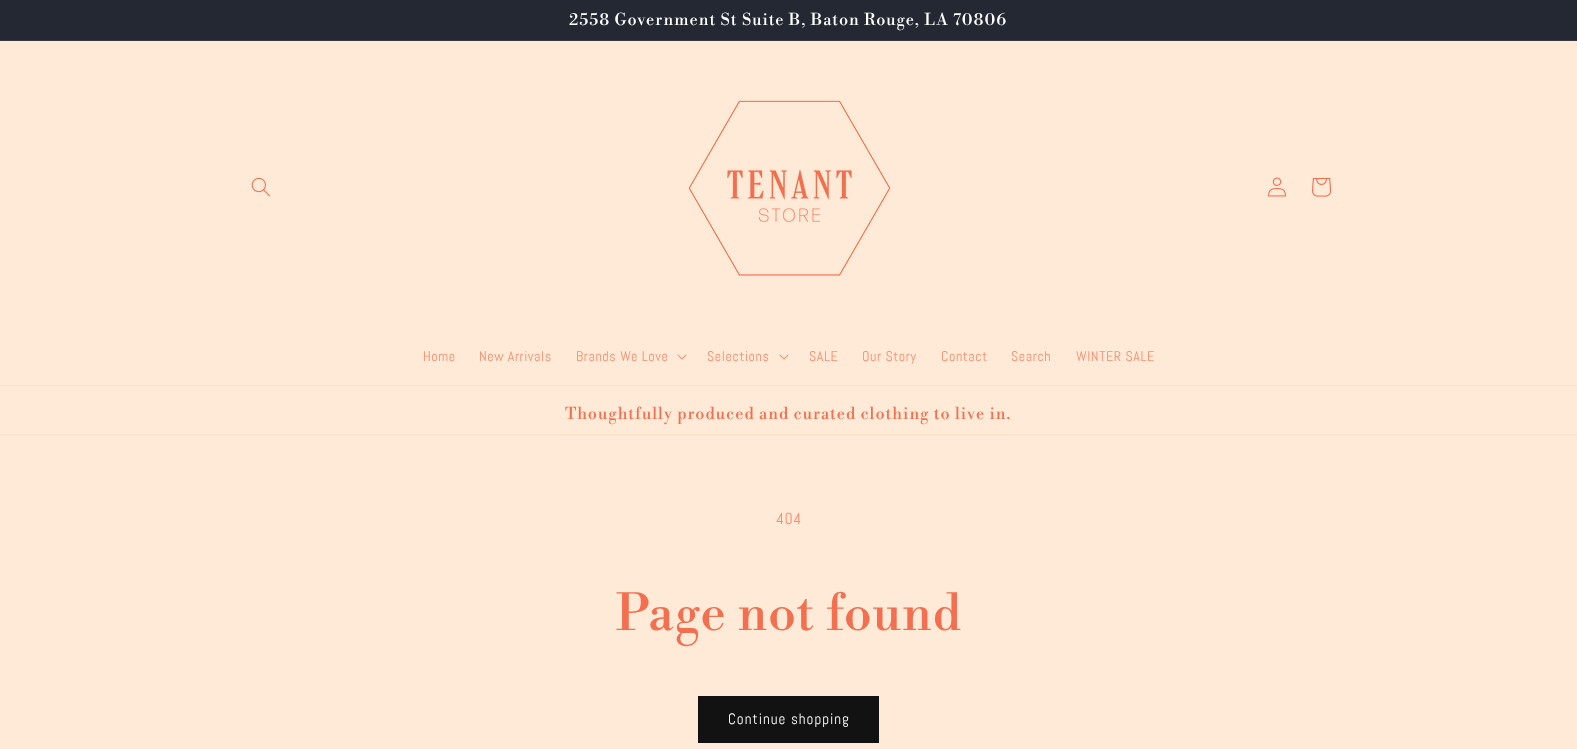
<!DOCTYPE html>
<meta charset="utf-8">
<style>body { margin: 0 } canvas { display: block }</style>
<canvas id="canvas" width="1577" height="749"></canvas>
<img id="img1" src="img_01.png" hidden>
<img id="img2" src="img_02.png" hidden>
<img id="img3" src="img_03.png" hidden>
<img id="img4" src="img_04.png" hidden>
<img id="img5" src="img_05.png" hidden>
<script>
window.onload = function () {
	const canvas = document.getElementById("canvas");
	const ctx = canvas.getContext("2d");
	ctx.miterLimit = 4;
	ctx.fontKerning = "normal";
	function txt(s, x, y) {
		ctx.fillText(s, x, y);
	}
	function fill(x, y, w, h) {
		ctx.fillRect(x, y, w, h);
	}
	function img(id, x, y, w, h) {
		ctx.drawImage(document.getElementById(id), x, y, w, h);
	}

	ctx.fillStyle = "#FFEAD7";
	fill(0, 0, 1577, 749);
	ctx.fillStyle = "#242833";
	fill(0, 0, 1577, 40);
	ctx.fillStyle = "#363943";
	fill(0, 40, 1577, 1);
	ctx.fillStyle = "#FEE0CC";
	fill(0, 385, 1577, 1);
	img("img1", 251, 177, 19, 20);
	img("img2", 688, 100, 203, 176);
	img("img3", 1268, 177, 18, 20);
	img("img4", 1312, 178, 20, 19);
	img("img5", 677, 354, 10, 6);
	img("img5", 779, 354, 10, 6);
	fill(0, 434, 1577, 1);
	ctx.fillStyle = "#121212";
	fill(698, 696, 181, 47);
	ctx.letterSpacing = "1px";
	ctx.font = "16.25px Libre Bodoni";
	ctx.fillStyle = "#FFFFFF";
	txt("2558 Government St Suite B, Baton Rouge, LA 70806", 569, 25);
	ctx.letterSpacing = "0.6px";
	ctx.font = "14px Abel";
	ctx.fillStyle = "#F68E71";
	txt("Home", 423, 361);
	txt("New Arrivals", 479, 361);
	txt("Brands We Love", 576, 361);
	txt("Selections", 707, 361);
	txt("SALE", 809, 361);
	txt("Our Story", 862, 361);
	txt("Contact", 941, 361);
	txt("Search", 1011, 361);
	txt("WINTER SALE", 1076, 361);
	ctx.letterSpacing = "1px";
	ctx.font = "16.25px Libre Bodoni";
	ctx.fillStyle = "#F36F4F";
	txt("Thoughtfully produced and curated clothing to live in.", 565, 419);
	ctx.letterSpacing = "0.6px";
	ctx.font = "16px Abel";
	ctx.fillStyle = "#F68E71";
	txt("404", 776, 524);
	ctx.letterSpacing = "0.75px";
	ctx.font = "50px Libre Bodoni";
	ctx.fillStyle = "#F36F4F";
	txt("Page not found", 616, 630);
	ctx.letterSpacing = "1px";
	ctx.font = "15px Abel";
	ctx.fillStyle = "#FFFFFF";
	txt("Continue shopping", 728, 724);
};
</script>
